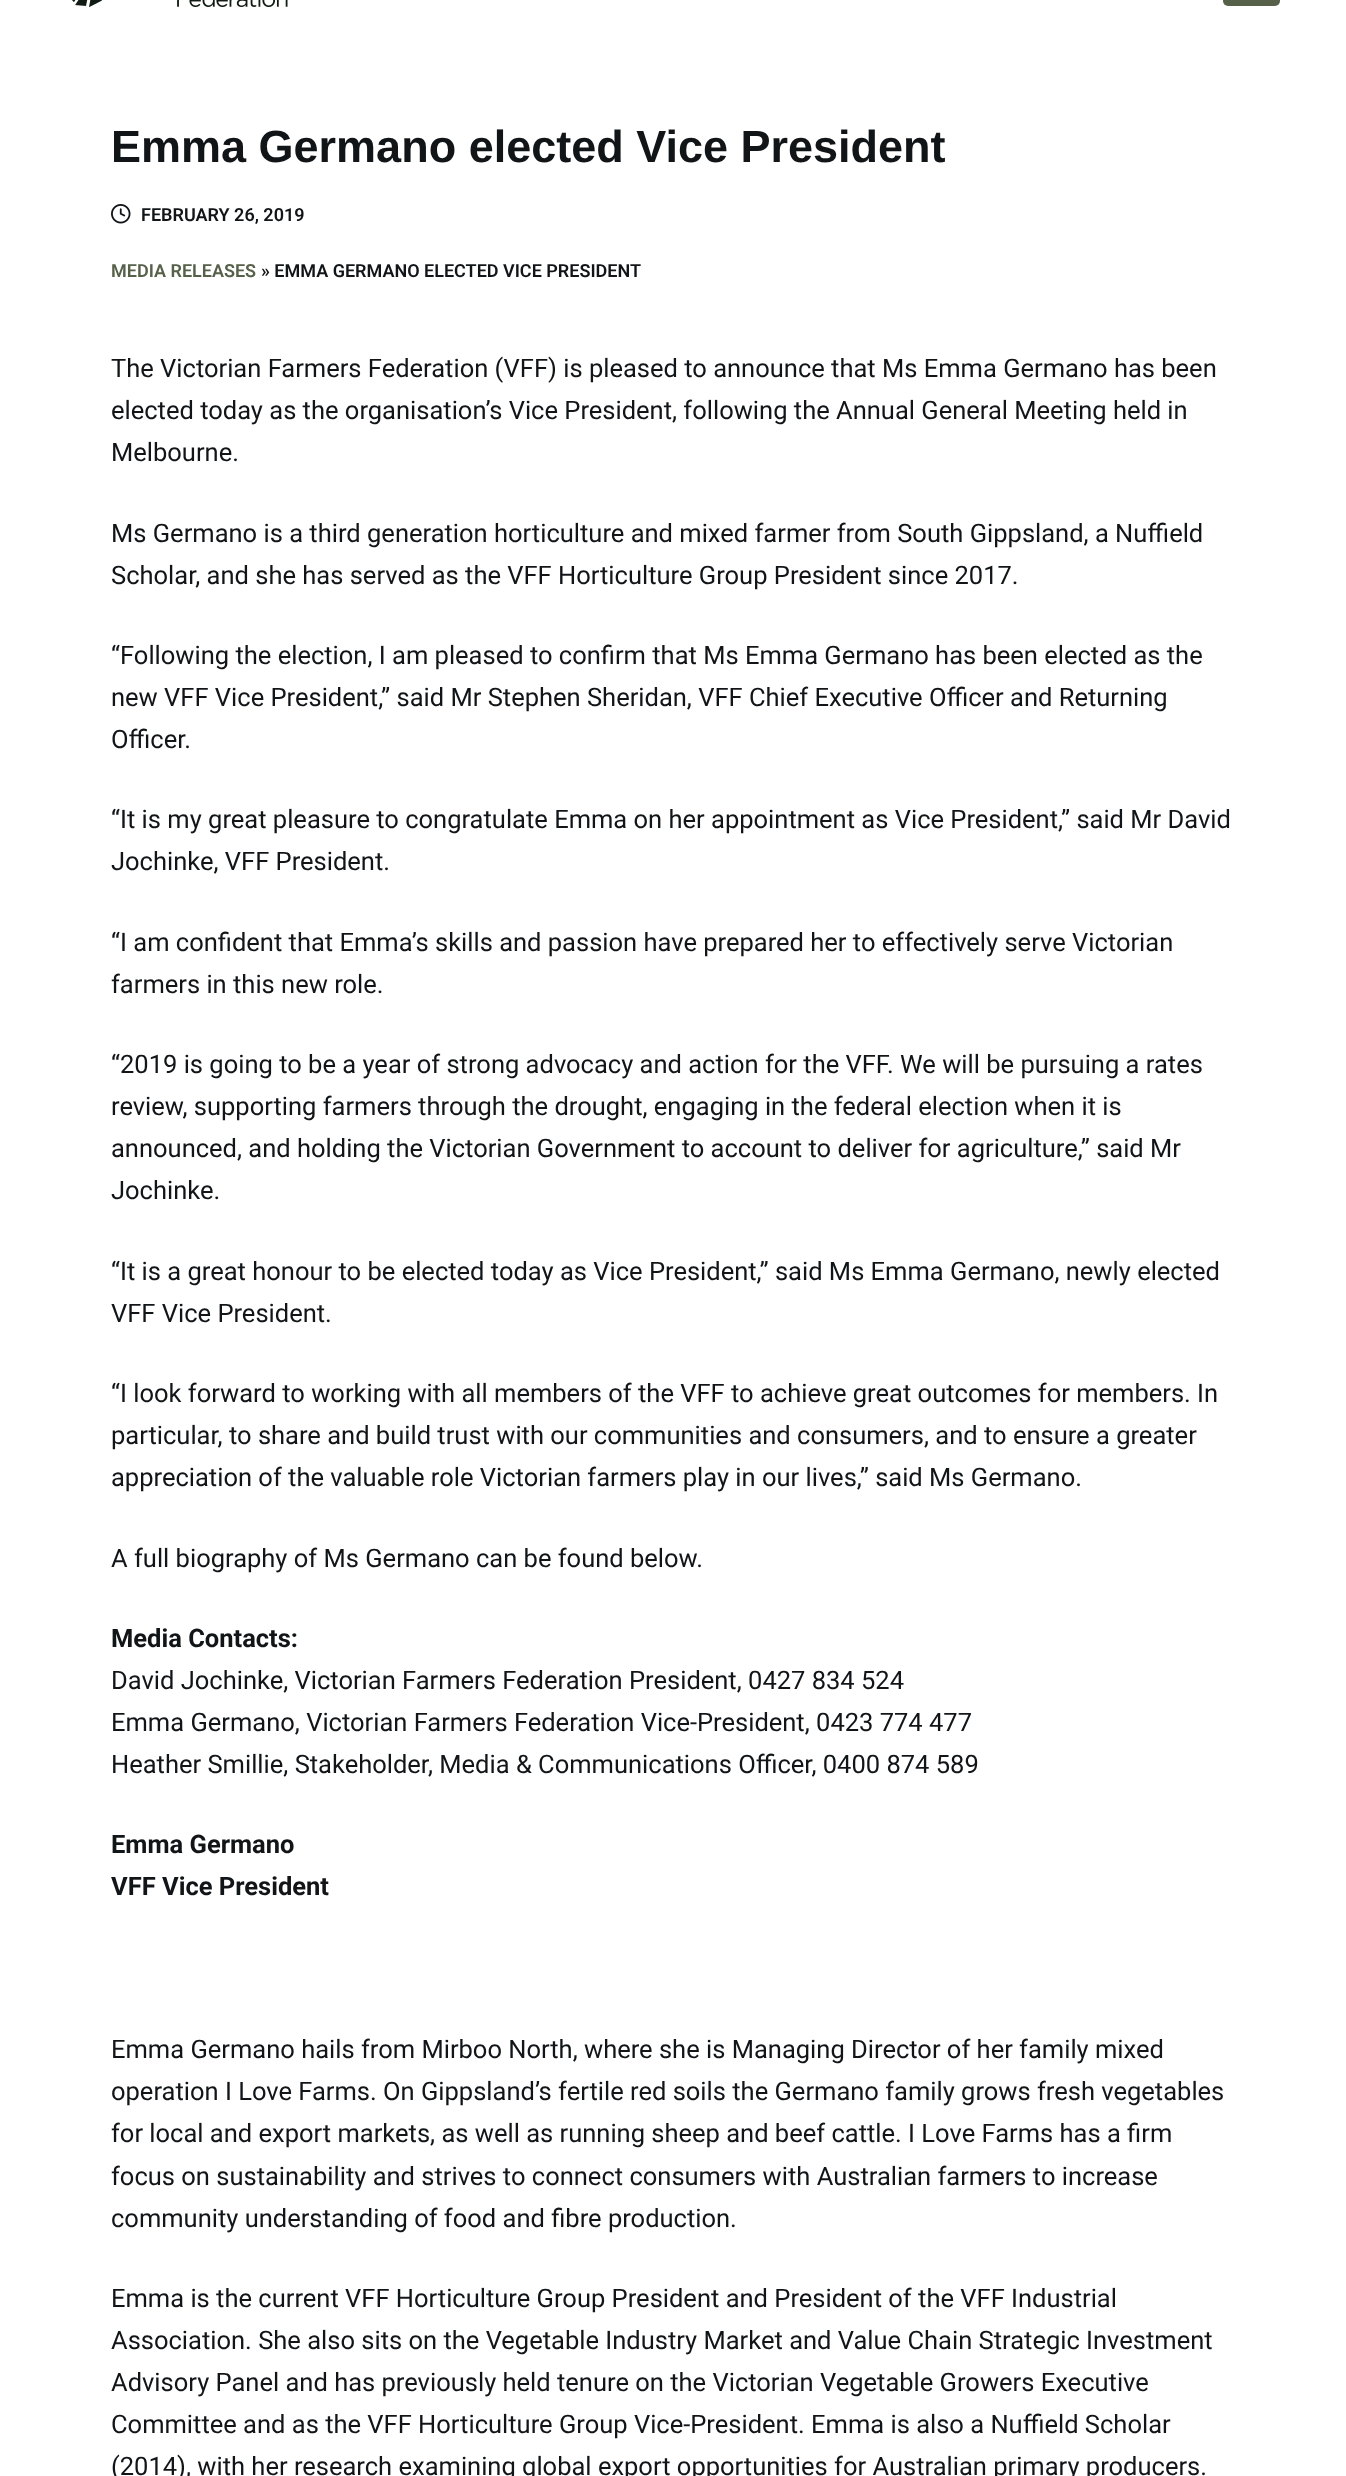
<!DOCTYPE html>
<meta charset="utf-8">
<style>body { margin: 0 } canvas { display: block }</style>
<canvas id="canvas" width="1346" height="2476"></canvas>
<img id="img1" src="img_01.png" hidden>
<img id="img2" src="img_02.png" hidden>
<script>
window.onload = function () {
	const canvas = document.getElementById("canvas");
	const ctx = canvas.getContext("2d");
	ctx.miterLimit = 4;
	ctx.fontKerning = "normal";
	function txt(s, x, y) {
		ctx.fillText(s, x, y);
	}
	function fill(x, y, w, h) {
		ctx.fillRect(x, y, w, h);
	}
	function round(x, y, w, h, r) {
		ctx.beginPath();
		ctx.roundRect(x, y, w, h, r);
		ctx.fill();
	}
	function img(id, x, y, w, h) {
		ctx.drawImage(document.getElementById(id), x, y, w, h);
	}

	ctx.fillStyle = "#FFFFFF";
	fill(0, 0, 1346, 2476);
	img("img1", 72, 0, 216, 7);
	ctx.fillStyle = "#57614A";
	round(1223, -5, 57, 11, 5);
	img("img2", 111, 204, 20, 20);
	ctx.font = "bold 45px Liberation Sans";
	ctx.fillStyle = "#111518";
	txt("Emma Germano elected Vice President", 111, 162);
	ctx.font = "600 18px Roboto";
	txt("FEBRUARY 26, 2019", 141, 221);
	ctx.fillStyle = "#57614A";
	txt("MEDIA RELEASES", 111, 277);
	ctx.fillStyle = "#111518";
	txt("» EMMA GERMANO ELECTED VICE PRESIDENT", 261, 277);
	ctx.font = "25.5px Roboto";
	txt("The Victorian Farmers Federation (VFF) is pleased to announce that Ms Emma Germano has been", 111, 377);
	txt("elected today as the organisation’s Vice President, following the Annual General Meeting held in", 111, 419);
	txt("Melbourne.", 111, 461);
	txt("Ms Germano is a third generation horticulture and mixed farmer from South Gippsland, a Nuffield", 111, 542);
	txt("Scholar, and she has served as the VFF Horticulture Group President since 2017.", 111, 584);
	txt("“Following the election, I am pleased to confirm that Ms Emma Germano has been elected as the", 111, 664);
	txt("new VFF Vice President,” said Mr Stephen Sheridan, VFF Chief Executive Officer and Returning", 111, 706);
	txt("Officer.", 111, 748);
	txt("“It is my great pleasure to congratulate Emma on her appointment as Vice President,” said Mr David", 111, 828);
	txt("Jochinke, VFF President.", 111, 870);
	txt("“I am confident that Emma’s skills and passion have prepared her to effectively serve Victorian", 111, 951);
	txt("farmers in this new role.", 111, 993);
	txt("“2019 is going to be a year of strong advocacy and action for the VFF. We will be pursuing a rates", 111, 1073);
	txt("review, supporting farmers through the drought, engaging in the federal election when it is", 111, 1115);
	txt("announced, and holding the Victorian Government to account to deliver for agriculture,” said Mr", 111, 1157);
	txt("Jochinke.", 111, 1199);
	txt("“It is a great honour to be elected today as Vice President,” said Ms Emma Germano, newly elected", 111, 1280);
	txt("VFF Vice President.", 111, 1322);
	txt("“I look forward to working with all members of the VFF to achieve great outcomes for members. In", 111, 1402);
	txt("particular, to share and build trust with our communities and consumers, and to ensure a greater", 111, 1444);
	txt("appreciation of the valuable role Victorian farmers play in our lives,” said Ms Germano.", 111, 1486);
	txt("A full biography of Ms Germano can be found below.", 111, 1567);
	ctx.font = "bold 25.5px Roboto";
	txt("Media Contacts:", 111, 1647);
	ctx.font = "25.5px Roboto";
	txt("David Jochinke, Victorian Farmers Federation President, 0427 834 524", 111, 1689);
	txt("Emma Germano, Victorian Farmers Federation Vice-President, 0423 774 477", 111, 1731);
	txt("Heather Smillie, Stakeholder, Media & Communications Officer, 0400 874 589", 111, 1773);
	ctx.font = "bold 25.5px Roboto";
	txt("Emma Germano", 111, 1853);
	txt("VFF Vice President", 111, 1895);
	ctx.font = "25.5px Roboto";
	txt("Emma Germano hails from Mirboo North, where she is Managing Director of her family mixed", 111, 2058);
	txt("operation I Love Farms. On Gippsland’s fertile red soils the Germano family grows fresh vegetables", 111, 2100);
	txt("for local and export markets, as well as running sheep and beef cattle. I Love Farms has a firm", 111, 2142);
	txt("focus on sustainability and strives to connect consumers with Australian farmers to increase", 111, 2185);
	txt("community understanding of food and fibre production.", 111, 2227);
	txt("Emma is the current VFF Horticulture Group President and President of the VFF Industrial", 111, 2307);
	txt("Association. She also sits on the Vegetable Industry Market and Value Chain Strategic Investment", 111, 2349);
	txt("Advisory Panel and has previously held tenure on the Victorian Vegetable Growers Executive", 111, 2391);
	txt("Committee and as the VFF Horticulture Group Vice-President. Emma is also a Nuffield Scholar", 111, 2433);
	txt("(2014), with her research examining global export opportunities for Australian primary producers.", 111, 2475);
};
</script>
